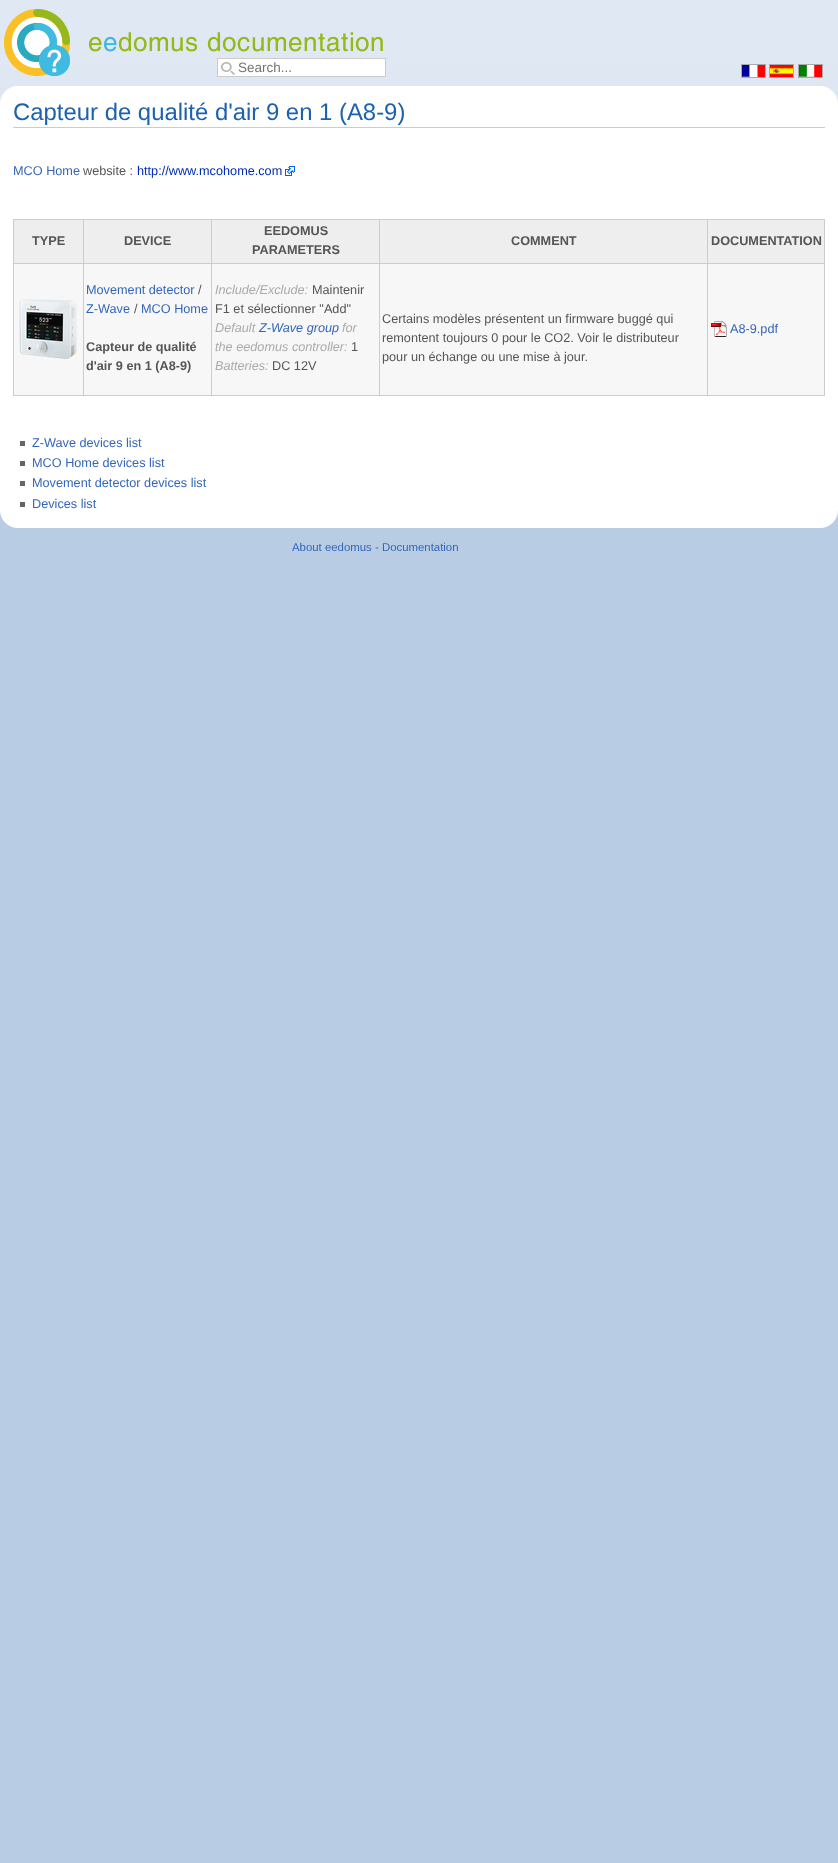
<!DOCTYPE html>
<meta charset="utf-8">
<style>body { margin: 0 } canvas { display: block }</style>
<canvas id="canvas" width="838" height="1863"></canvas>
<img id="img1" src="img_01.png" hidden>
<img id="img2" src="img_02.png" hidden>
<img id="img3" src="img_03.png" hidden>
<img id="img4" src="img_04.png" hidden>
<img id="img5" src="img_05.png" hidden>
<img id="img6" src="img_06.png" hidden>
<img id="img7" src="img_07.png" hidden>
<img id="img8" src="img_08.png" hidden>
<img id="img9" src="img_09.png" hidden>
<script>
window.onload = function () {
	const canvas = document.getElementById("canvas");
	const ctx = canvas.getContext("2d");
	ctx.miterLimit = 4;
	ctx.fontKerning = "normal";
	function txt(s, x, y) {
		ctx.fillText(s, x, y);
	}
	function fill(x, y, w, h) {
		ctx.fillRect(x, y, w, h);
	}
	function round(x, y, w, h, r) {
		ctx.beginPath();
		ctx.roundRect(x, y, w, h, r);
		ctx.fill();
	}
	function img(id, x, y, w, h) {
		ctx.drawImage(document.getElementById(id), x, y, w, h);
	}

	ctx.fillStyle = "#B8CCE4";
	fill(0, 0, 838, 1863);
	img("img1", 0, 0, 838, 104);
	img("img2", 4, 9, 379, 67);
	ctx.fillStyle = "#FFFFFF";
	fill(218, 59, 167, 17);
	img("img3", 221, 62, 14, 13);
	ctx.strokeStyle = "#CCCCCC";
	ctx.strokeRect(217.5, 58.5, 168, 18);
	img("img4", 741, 64, 25, 14);
	img("img5", 769, 64, 25, 14);
	img("img6", 798, 64, 25, 14);
	round(0, 86, 838, 442, 18);
	ctx.fillStyle = "#CCCCCC";
	fill(13, 127, 812, 1);
	img("img7", 285, 166, 10, 10);
	ctx.fillStyle = "#F7F7F7";
	fill(14, 264, 810, 131);
	ctx.fillStyle = "#CCCCCC";
	fill(13, 219, 812, 1);
	fill(824, 219, 1, 177);
	fill(13, 395, 812, 1);
	fill(13, 219, 1, 177);
	ctx.fillStyle = "#EEEEEE";
	fill(14, 220, 69, 43);
	fill(84, 220, 127, 43);
	ctx.fillStyle = "#CCCCCC";
	fill(707, 263, 118, 1);
	fill(707, 263, 1, 133);
	fill(379, 263, 329, 1);
	fill(379, 263, 1, 133);
	fill(211, 263, 169, 1);
	fill(211, 263, 1, 133);
	fill(83, 263, 129, 1);
	fill(83, 263, 1, 133);
	fill(13, 263, 71, 1);
	fill(83, 219, 1, 45);
	ctx.fillStyle = "#EEEEEE";
	fill(212, 220, 167, 43);
	ctx.fillStyle = "#CCCCCC";
	fill(211, 219, 1, 45);
	ctx.fillStyle = "#EEEEEE";
	fill(380, 220, 327, 43);
	ctx.fillStyle = "#CCCCCC";
	fill(379, 219, 1, 45);
	ctx.fillStyle = "#EEEEEE";
	fill(708, 220, 116, 43);
	ctx.fillStyle = "#CCCCCC";
	fill(707, 219, 1, 45);
	img("img8", 19, 299, 58, 60);
	img("img9", 711, 321, 16, 16);
	ctx.fillStyle = "#666666";
	fill(20, 441, 5, 5);
	fill(20, 461, 5, 5);
	fill(20, 481, 5, 5);
	fill(20, 502, 5, 5);
	ctx.font = "13.5px Liberation Sans";
	ctx.fillStyle = "#757575";
	txt("Search...", 238, 72);
	ctx.font = "23.9px Liberation Sans";
	ctx.fillStyle = "#1C62AF";
	txt("Capteur de qualité d'air 9 en 1 (A8-9)", 13, 120);
	ctx.font = "12.7px Liberation Sans";
	ctx.fillStyle = "#3366BB";
	txt("MCO Home", 13, 175);
	ctx.fillStyle = "#555555";
	txt("website :", 83, 175);
	ctx.fillStyle = "#002BB8";
	txt("http://www.mcohome.com", 137, 175);
	ctx.font = "bold 12.7px Liberation Sans";
	ctx.fillStyle = "#555555";
	txt("TYPE", 32, 245);
	txt("DEVICE", 124, 245);
	txt("EEDOMUS", 264, 235);
	txt("PARAMETERS", 252, 254);
	txt("COMMENT", 511, 245);
	txt("DOCUMENTATION", 711, 245);
	ctx.font = "12.7px Liberation Sans";
	ctx.fillStyle = "#3366BB";
	txt("Movement detector", 86, 294);
	ctx.fillStyle = "#555555";
	txt("/", 198, 294);
	ctx.fillStyle = "#3366BB";
	txt("Z-Wave", 86, 313);
	ctx.fillStyle = "#555555";
	txt("/", 134, 313);
	ctx.fillStyle = "#3366BB";
	txt("MCO Home", 141, 313);
	ctx.font = "bold 12.7px Liberation Sans";
	ctx.fillStyle = "#555555";
	txt("Capteur de qualité", 86, 351);
	txt("d'air 9 en 1 (A8-9)", 86, 370);
	ctx.font = "italic 12.7px Liberation Sans";
	ctx.fillStyle = "#AAAAAA";
	txt("Include/Exclude:", 215, 294);
	ctx.font = "12.7px Liberation Sans";
	ctx.fillStyle = "#555555";
	txt("Maintenir", 312, 294);
	txt("F1 et sélectionner \"Add\"", 215, 313);
	ctx.font = "italic 12.7px Liberation Sans";
	ctx.fillStyle = "#AAAAAA";
	txt("Default", 215, 332);
	ctx.fillStyle = "#3366BB";
	txt("Z-Wave group", 259, 332);
	ctx.fillStyle = "#AAAAAA";
	txt("for", 342, 332);
	txt("the eedomus controller:", 215, 351);
	ctx.font = "12.7px Liberation Sans";
	ctx.fillStyle = "#555555";
	txt("1", 351, 351);
	ctx.font = "italic 12.7px Liberation Sans";
	ctx.fillStyle = "#AAAAAA";
	txt("Batteries:", 215, 370);
	ctx.font = "12.7px Liberation Sans";
	ctx.fillStyle = "#555555";
	txt("DC 12V", 272, 370);
	txt("Certains modèles présentent un firmware buggé qui", 382, 323);
	txt("remontent toujours 0 pour le CO2. Voir le distributeur", 382, 342);
	txt("pour un échange ou une mise à jour.", 382, 361);
	ctx.fillStyle = "#3366BB";
	txt("A8-9.pdf", 730, 333);
	txt("Z-Wave devices list", 32, 447);
	txt("MCO Home devices list", 32, 467);
	txt("Movement detector devices list", 32, 487);
	txt("Devices list", 32, 508);
	ctx.font = "11.4px Liberation Sans";
	txt("About eedomus - Documentation", 292, 551);
};
</script>
